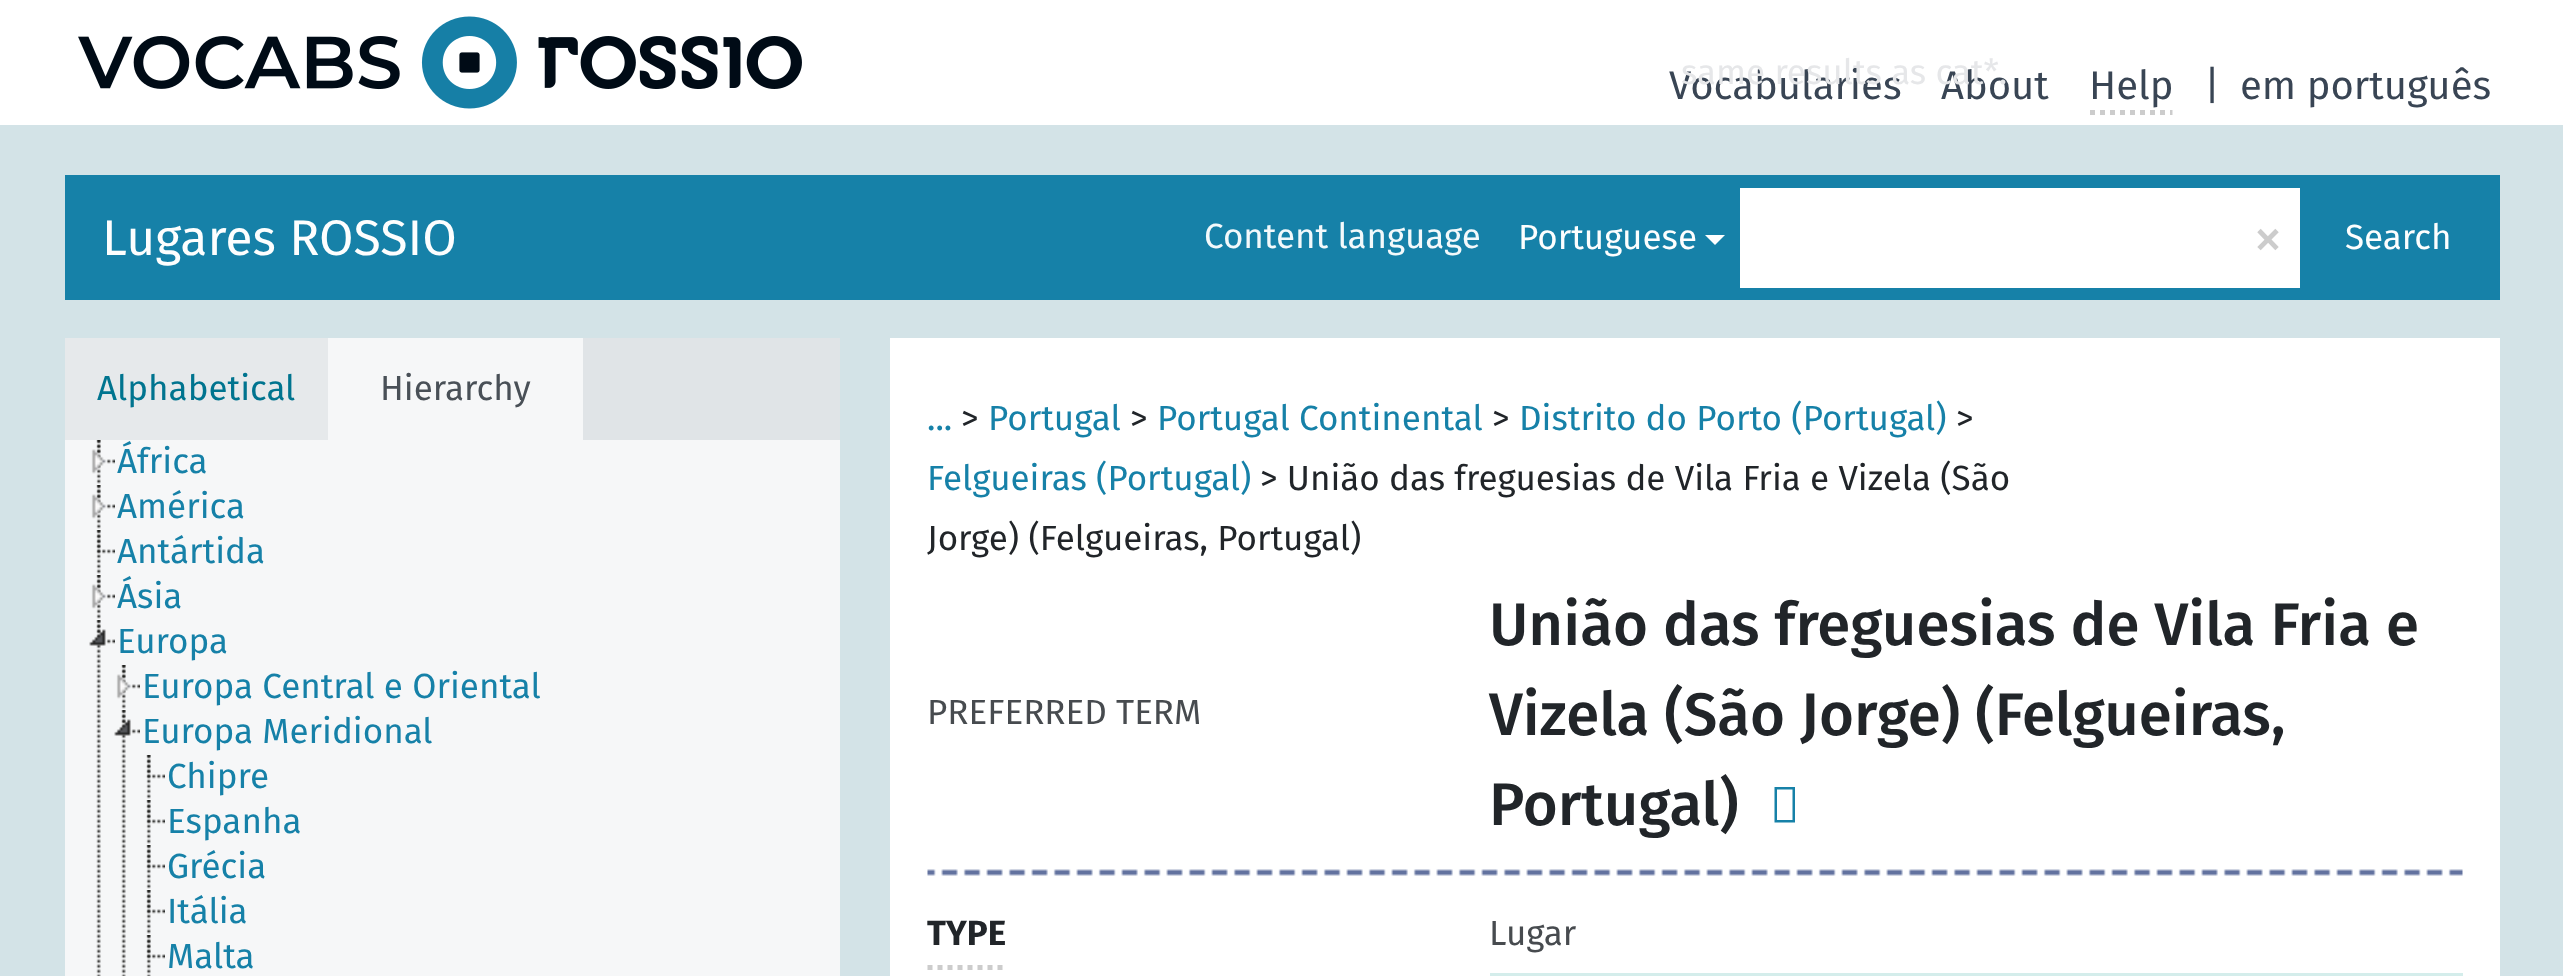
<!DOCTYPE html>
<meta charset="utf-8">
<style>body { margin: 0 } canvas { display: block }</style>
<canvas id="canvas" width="2563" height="976"></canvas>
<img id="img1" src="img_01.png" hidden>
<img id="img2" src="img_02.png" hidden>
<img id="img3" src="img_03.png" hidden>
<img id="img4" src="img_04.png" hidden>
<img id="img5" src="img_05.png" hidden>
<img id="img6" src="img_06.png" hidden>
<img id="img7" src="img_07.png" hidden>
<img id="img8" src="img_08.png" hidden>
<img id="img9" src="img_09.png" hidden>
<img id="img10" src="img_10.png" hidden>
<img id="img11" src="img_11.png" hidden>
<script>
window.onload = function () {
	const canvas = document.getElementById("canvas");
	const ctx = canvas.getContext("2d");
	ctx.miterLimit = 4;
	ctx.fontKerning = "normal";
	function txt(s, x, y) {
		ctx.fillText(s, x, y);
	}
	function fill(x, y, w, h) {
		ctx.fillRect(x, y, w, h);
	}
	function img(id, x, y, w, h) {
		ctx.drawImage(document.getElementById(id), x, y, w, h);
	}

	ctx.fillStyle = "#D3E3E7";
	fill(0, 0, 2563, 976);
	ctx.fillStyle = "#FFFFFF";
	fill(0, 0, 2563, 125);
	img("img1", 78, 16, 724, 93);
	ctx.beginPath();
	ctx.moveTo(2090, 112.5);
	ctx.lineTo(2172.5, 112.5);
	ctx.strokeStyle = "#CCCCCC";
	ctx.lineWidth = 5;
	ctx.setLineDash([5, 5]);
	ctx.stroke();
	ctx.fillStyle = "#1681A8";
	fill(65, 175, 2435, 125);
	ctx.fillStyle = "#FFFFFF";
	ctx.beginPath();
	ctx.moveTo(1705, 235);
	ctx.lineTo(1725, 235);
	ctx.lineTo(1715, 245);
	ctx.closePath();
	ctx.fill();
	fill(1740, 188, 560, 100);
	ctx.fillStyle = "#E0E4E7";
	fill(583, 338, 257, 102);
	ctx.fillStyle = "#E6E9EB";
	fill(65, 338, 263, 102);
	ctx.fillStyle = "#F6F7F8";
	fill(328, 338, 255, 102);
	fill(65, 440, 775, 536);
	img("img2", 96, 440, 5, 44);
	img("img3", 91, 440, 24, 34);
	img("img2", 96, 485, 5, 44);
	img("img3", 91, 485, 24, 34);
	img("img2", 96, 530, 5, 44);
	img("img4", 96, 530, 19, 24);
	img("img5", 96, 575, 5, 44);
	img("img6", 91, 575, 24, 34);
	img("img7", 96, 620, 5, 356);
	img("img8", 89, 620, 26, 26);
	img("img2", 121, 665, 5, 44);
	img("img3", 116, 665, 24, 34);
	img("img9", 121, 710, 5, 266);
	img("img8", 114, 710, 26, 26);
	img("img2", 146, 755, 5, 44);
	img("img4", 146, 755, 19, 24);
	img("img2", 146, 800, 5, 44);
	img("img4", 146, 800, 19, 24);
	img("img2", 146, 845, 5, 44);
	img("img4", 146, 845, 19, 24);
	img("img2", 146, 890, 5, 44);
	img("img4", 146, 890, 19, 24);
	img("img10", 146, 935, 5, 41);
	img("img4", 146, 935, 19, 24);
	ctx.fillStyle = "#FFFFFF";
	fill(890, 338, 1610, 638);
	ctx.fillStyle = "#1681A8";
	ctx.beginPath();
	ctx.moveTo(1774.5, 822.5);
	ctx.lineTo(1774.5, 787);
	ctx.lineTo(1795, 787);
	ctx.lineTo(1795, 822.5);
	ctx.closePath();
	ctx.moveTo(1777, 820);
	ctx.lineTo(1792.5, 820);
	ctx.lineTo(1792.5, 789.5);
	ctx.lineTo(1777, 789.5);
	ctx.closePath();
	ctx.fill();
	img("img11", 927, 869, 1536, 7);
	ctx.beginPath();
	ctx.moveTo(927.5, 967.5);
	ctx.lineTo(1005, 967.5);
	ctx.stroke();
	ctx.fillStyle = "#D4EDEB";
	fill(1490, 973, 973, 3);
	ctx.font = "40px Fira Sans";
	ctx.fillStyle = "#394554";
	txt("Help", 2089, 99);
	txt("Vocabularies", 1669, 99);
	txt("About", 1941, 99);
	ctx.font = "35px Fira Sans";
	ctx.fillStyle = "#E6E7E9";
	txt("same results as cat*.", 1681, 84);
	ctx.font = "40px Fira Sans";
	ctx.fillStyle = "#394554";
	txt("|", 2204, 99);
	txt("em português", 2240, 99);
	ctx.font = "50px Fira Sans";
	ctx.fillStyle = "#FDFEFE";
	txt("Lugares ROSSIO", 102, 255);
	ctx.font = "35px Fira Sans";
	ctx.fillStyle = "#F3F9FB";
	txt("Content language", 1204, 248);
	ctx.fillStyle = "#FDFEFE";
	txt("Portuguese", 1518, 249);
	ctx.font = "60px Fira Sans";
	ctx.fillStyle = "#CCCCCC";
	txt("×", 2253, 258);
	ctx.font = "35px Fira Sans";
	ctx.fillStyle = "#FDFEFE";
	txt("Search", 2345, 249);
	ctx.fillStyle = "#00748F";
	txt("Alphabetical", 97, 400);
	ctx.fillStyle = "#495057";
	txt("Hierarchy", 380, 400);
	ctx.fillStyle = "#1681A8";
	txt("África", 117, 473);
	txt("América", 117, 518);
	txt("Antártida", 117, 563);
	txt("Ásia", 117, 608);
	txt("Europa", 117, 653);
	txt("Europa Central e Oriental", 142, 698);
	txt("Europa Meridional", 142, 743);
	txt("Chipre", 167, 788);
	txt("Espanha", 167, 833);
	txt("Grécia", 167, 878);
	txt("Itália", 167, 923);
	txt("Malta", 167, 968);
	ctx.fillStyle = "#212529";
	txt(">", 961, 430);
	ctx.fillStyle = "#1681A8";
	txt("Portugal", 988, 430);
	ctx.fillStyle = "#212529";
	txt(">", 1130, 430);
	ctx.fillStyle = "#1681A8";
	txt("Portugal Continental", 1157, 430);
	ctx.fillStyle = "#212529";
	txt(">", 1492, 430);
	ctx.fillStyle = "#1681A8";
	txt("Distrito do Porto (Portugal)", 1519, 430);
	ctx.fillStyle = "#212529";
	txt(">", 1956, 430);
	ctx.fillStyle = "#1681A8";
	txt("...", 927, 430);
	txt("Felgueiras (Portugal)", 927, 490);
	ctx.fillStyle = "#212529";
	txt("> União das freguesias de Vila Fria e Vizela (São", 1260, 490);
	txt("Jorge) (Felgueiras, Portugal)", 927, 550);
	ctx.fillStyle = "#474B4F";
	txt("PREFERRED TERM", 927, 724);
	ctx.font = "500 60px Fira Sans";
	ctx.fillStyle = "#212529";
	txt("União das freguesias de Vila Fria e", 1489, 645);
	txt("Vizela (São Jorge) (Felgueiras,", 1489, 735);
	txt("Portugal)", 1489, 825);
	ctx.font = "bold 35px Fira Sans";
	txt("TYPE", 927, 945);
	ctx.font = "35px Fira Sans";
	ctx.fillStyle = "#474B4F";
	txt("Lugar", 1489, 945);
};
</script>
